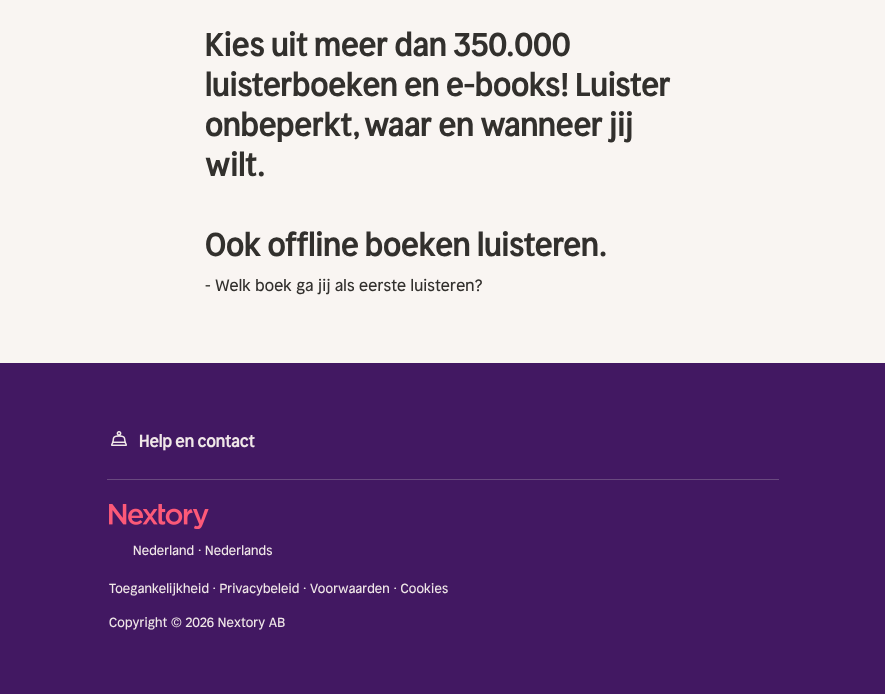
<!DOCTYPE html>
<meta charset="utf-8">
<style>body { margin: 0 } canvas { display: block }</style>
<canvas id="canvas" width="885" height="694"></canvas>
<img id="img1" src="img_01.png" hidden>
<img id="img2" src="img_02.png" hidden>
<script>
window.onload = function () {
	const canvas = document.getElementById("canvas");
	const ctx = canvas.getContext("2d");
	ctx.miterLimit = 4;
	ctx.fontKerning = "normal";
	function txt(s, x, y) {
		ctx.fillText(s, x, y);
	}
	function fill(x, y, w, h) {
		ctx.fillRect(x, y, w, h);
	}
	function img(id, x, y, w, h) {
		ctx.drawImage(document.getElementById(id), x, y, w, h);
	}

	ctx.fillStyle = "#F9F5F2";
	fill(0, 0, 885, 694);
	ctx.fillStyle = "#421862";
	fill(0, 363, 885, 331);
	img("img1", 111, 431, 16, 15);
	ctx.fillStyle = "#69497F";
	fill(107, 479, 672, 1);
	img("img2", 109, 504, 100, 25);
	ctx.letterSpacing = "-0.3px";
	ctx.font = "600 32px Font";
	ctx.fillStyle = "#32302D";
	txt("Kies uit meer dan 350.000", 205, 56);
	txt("luisterboeken en e-books! Luister", 205, 96);
	txt("onbeperkt, waar en wanneer jij", 205, 136);
	txt("wilt.", 205, 176);
	txt("Ook offline boeken luisteren.", 205, 256);
	ctx.letterSpacing = "0.15px";
	ctx.font = "16px Font";
	txt("- Welk boek ga jij als eerste luisteren?", 205, 291);
	ctx.letterSpacing = "-0.2px";
	ctx.font = "600 17px Font";
	ctx.fillStyle = "#F0E7E8";
	txt("Help en contact", 139, 447);
	ctx.letterSpacing = "0.13px";
	ctx.font = "13px Font";
	txt("Nederland", 133, 555);
	txt("· Nederlands", 198, 555);
	txt("Toegankelijkheid · Privacybeleid · Voorwaarden · Cookies", 109, 593);
	txt("Copyright © 2026 Nextory AB", 109, 627);
};
</script>
